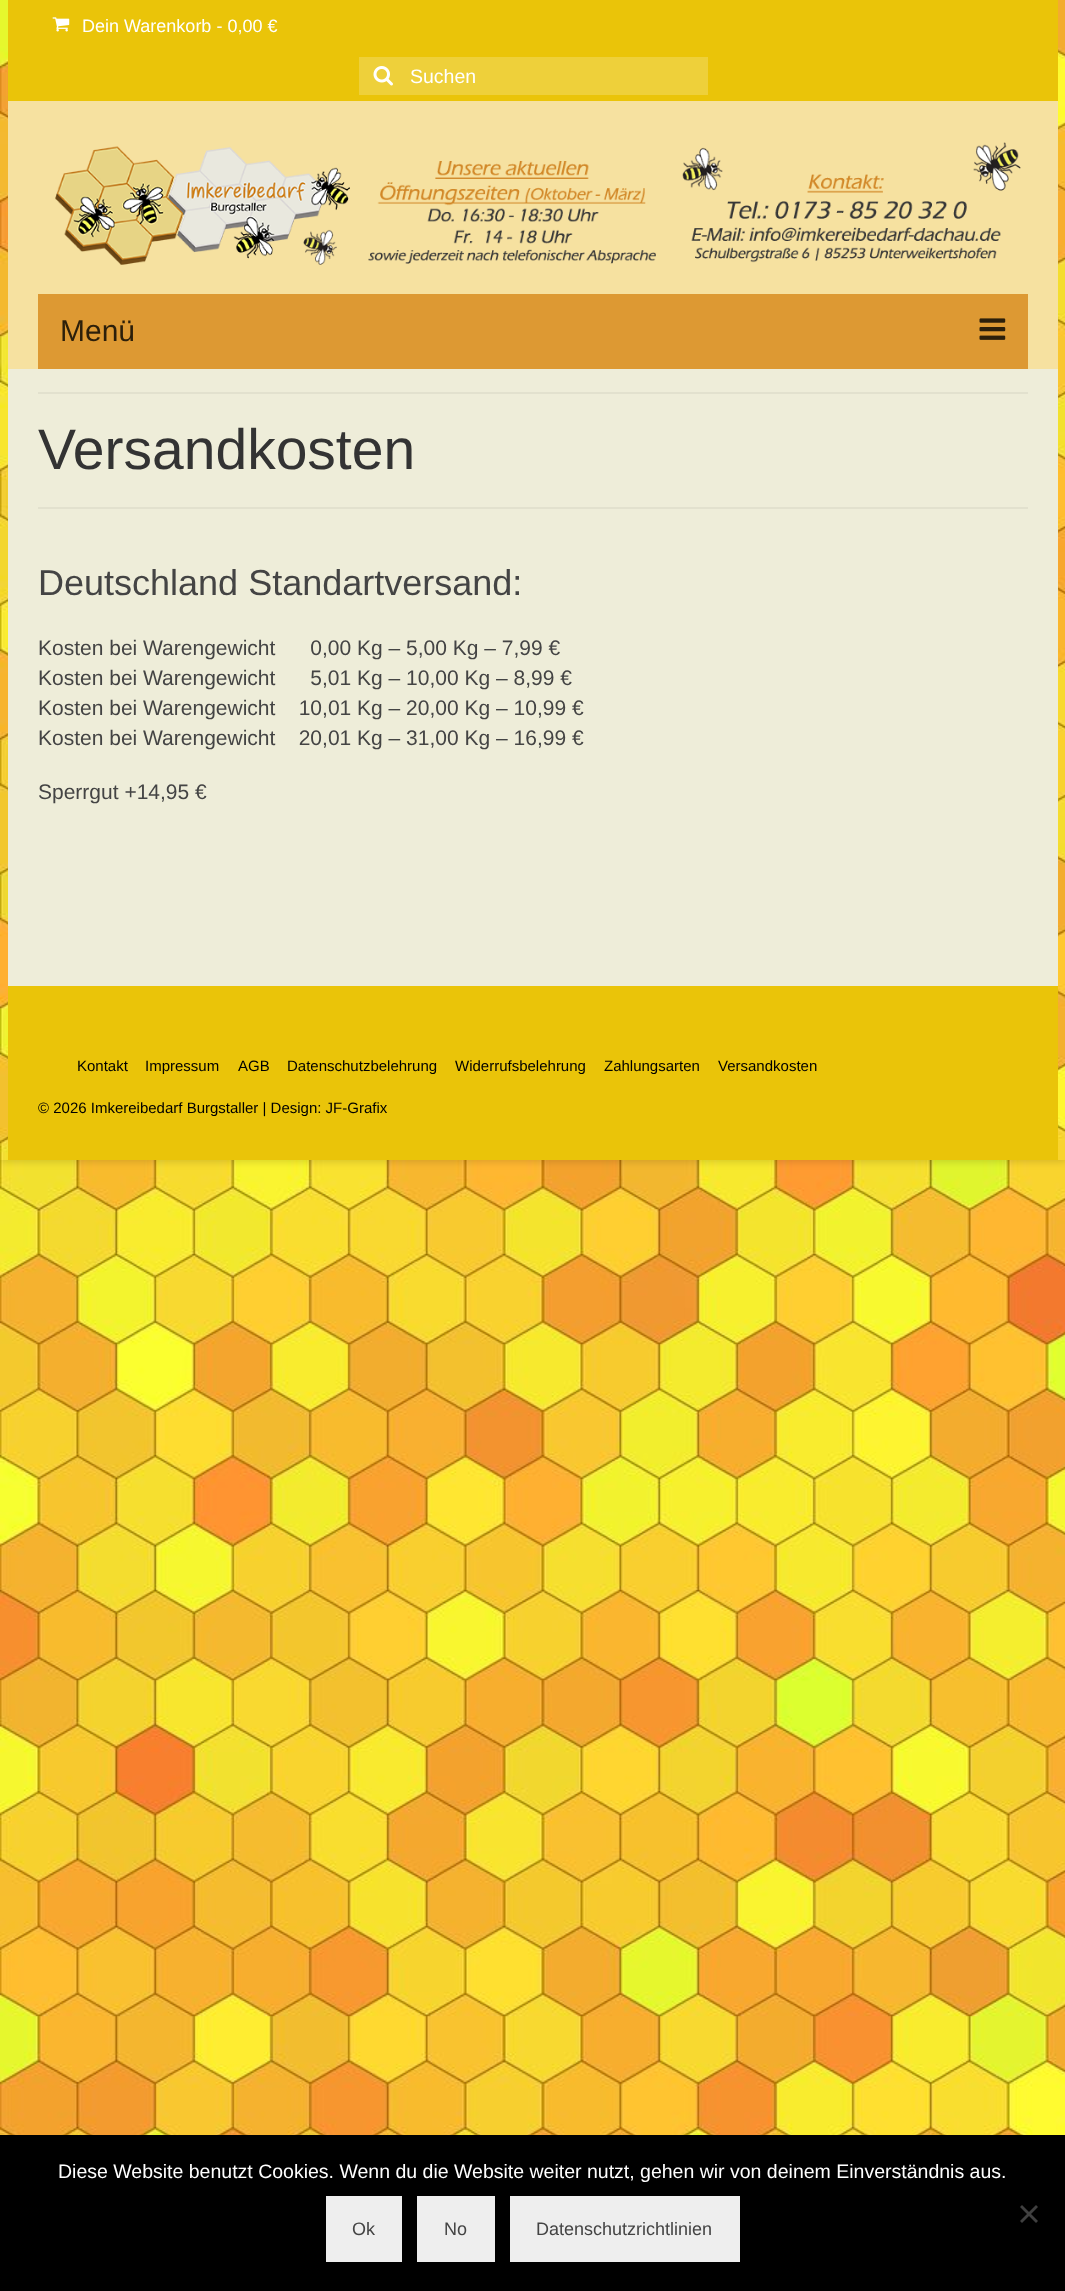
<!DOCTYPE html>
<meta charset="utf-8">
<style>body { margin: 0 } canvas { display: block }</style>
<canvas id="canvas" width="1065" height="2291"></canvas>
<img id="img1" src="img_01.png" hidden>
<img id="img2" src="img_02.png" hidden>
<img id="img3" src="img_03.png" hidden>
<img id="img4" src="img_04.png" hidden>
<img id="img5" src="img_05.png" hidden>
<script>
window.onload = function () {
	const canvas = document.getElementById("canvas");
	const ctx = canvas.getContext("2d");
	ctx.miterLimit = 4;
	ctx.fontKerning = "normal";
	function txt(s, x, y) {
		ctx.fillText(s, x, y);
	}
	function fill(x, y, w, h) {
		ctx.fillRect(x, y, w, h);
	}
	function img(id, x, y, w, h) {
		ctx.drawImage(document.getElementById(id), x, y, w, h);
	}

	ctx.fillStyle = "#FFFFFF";
	fill(0, 0, 1065, 2291);
	img("img1", 0, 0, 1065, 2135);
	ctx.save();
	ctx.beginPath();
	ctx.moveTo(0, 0);
	ctx.lineTo(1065, 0);
	ctx.lineTo(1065, 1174);
	ctx.lineTo(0, 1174);
	ctx.closePath();
	ctx.moveTo(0, 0);
	ctx.lineTo(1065, 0);
	ctx.lineTo(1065, 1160);
	ctx.lineTo(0, 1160);
	ctx.closePath();
	ctx.clip("evenodd");
	ctx.fillStyle = "rgba(0, 0, 0, 0.16)";
	ctx.filter = "blur(4px)";
	ctx.beginPath();
	ctx.rect(-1, -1, 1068, 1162);
	ctx.fill();
	ctx.filter = "none";
	ctx.restore();
	ctx.fillStyle = "#F6E1A0";
	fill(8, 101, 1050, 268);
	ctx.fillStyle = "#EAC409";
	fill(8, 0, 1050, 101);
	img("img2", 52, 17, 18, 15);
	ctx.fillStyle = "#EED03A";
	fill(359, 57, 349, 38);
	img("img3", 373, 66, 20, 20);
	img("img4", 55, 142, 966, 123);
	ctx.fillStyle = "#DD9933";
	fill(38, 294, 990, 75);
	img("img5", 979, 318, 27, 22);
	ctx.fillStyle = "#EEEDD9";
	fill(8, 369, 1050, 617);
	ctx.fillStyle = "#E2E1CE";
	fill(38, 392, 990, 2);
	fill(38, 507, 990, 2);
	ctx.fillStyle = "#EAC409";
	fill(8, 986, 1050, 174);
	ctx.fillStyle = "#000000";
	fill(0, 2135, 1065, 156);
	ctx.fillStyle = "#404040";
	ctx.beginPath();
	ctx.moveTo(1036, 2205);
	ctx.lineTo(1038, 2207);
	ctx.lineTo(1022, 2223);
	ctx.lineTo(1020, 2221);
	ctx.closePath();
	ctx.fill();
	ctx.beginPath();
	ctx.moveTo(1020, 2207);
	ctx.lineTo(1022, 2205);
	ctx.lineTo(1038, 2221);
	ctx.lineTo(1036, 2223);
	ctx.closePath();
	ctx.fill();
	ctx.fillStyle = "#EEEEEE";
	fill(326, 2196, 76, 66);
	fill(417, 2196, 78, 66);
	fill(510, 2196, 230, 66);
	ctx.font = "18px Liberation Sans";
	ctx.fillStyle = "#FFFFFF";
	txt("Dein Warenkorb - 0,00 €", 82, 32);
	ctx.font = "19.5px Liberation Sans";
	txt("Suchen", 410, 83);
	ctx.font = "30px Liberation Sans";
	ctx.fillStyle = "#2C1F0A";
	txt("Menü", 60, 341);
	ctx.font = "57px Liberation Sans";
	ctx.fillStyle = "#333333";
	txt("Versandkosten", 38, 469);
	ctx.font = "36px Liberation Sans";
	ctx.fillStyle = "#444444";
	txt("Deutschland Standartversand:", 38, 595);
	ctx.font = "21px Liberation Sans";
	txt("Kosten bei Warengewicht      0,00 Kg – 5,00 Kg – 7,99 €", 38, 655);
	txt("Kosten bei Warengewicht      5,01 Kg – 10,00 Kg – 8,99 €", 38, 685);
	txt("Kosten bei Warengewicht    10,01 Kg – 20,00 Kg – 10,99 €", 38, 715);
	txt("Kosten bei Warengewicht    20,01 Kg – 31,00 Kg – 16,99 €", 38, 745);
	txt("Sperrgut +14,95 €", 38, 799);
	ctx.font = "15px Liberation Sans";
	ctx.fillStyle = "#000000";
	txt("Kontakt", 77, 1071);
	txt("Impressum", 145, 1071);
	txt("AGB", 238, 1071);
	txt("Datenschutzbelehrung", 287, 1071);
	txt("Widerrufsbelehrung", 455, 1071);
	txt("Zahlungsarten", 604, 1071);
	txt("Versandkosten", 718, 1071);
	txt("© 2026 Imkereibedarf Burgstaller | Design: JF-Grafix", 38, 1113);
	ctx.font = "19.5px Liberation Sans";
	ctx.fillStyle = "#FFFFFF";
	txt("Diese Website benutzt Cookies. Wenn du die Website weiter nutzt, gehen wir von deinem Einverständnis aus.", 58, 2178);
	ctx.font = "18px Liberation Sans";
	ctx.fillStyle = "#444444";
	txt("Ok", 352, 2235);
	txt("No", 444, 2235);
	txt("Datenschutzrichtlinien", 536, 2235);
};
</script>
